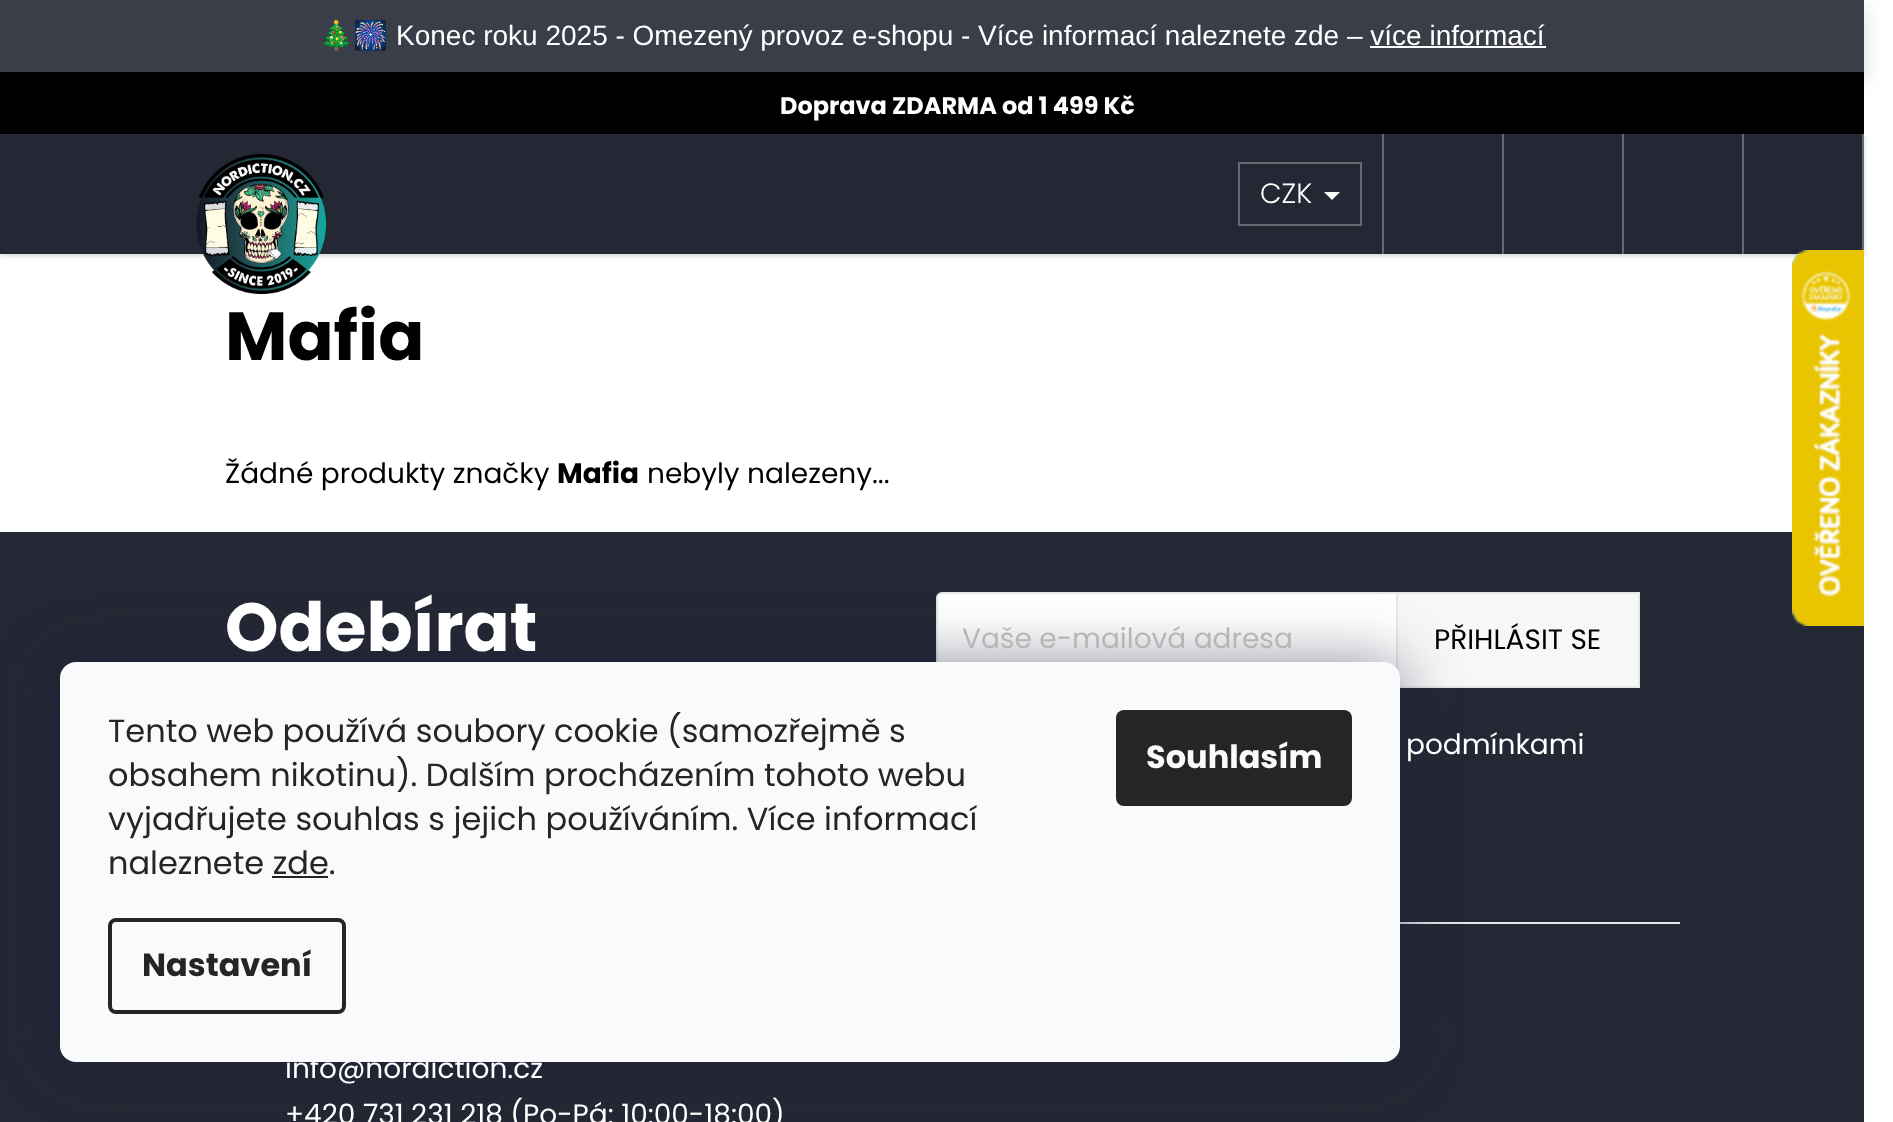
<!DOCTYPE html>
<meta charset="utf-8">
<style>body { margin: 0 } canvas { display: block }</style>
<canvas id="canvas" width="1893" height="1122"></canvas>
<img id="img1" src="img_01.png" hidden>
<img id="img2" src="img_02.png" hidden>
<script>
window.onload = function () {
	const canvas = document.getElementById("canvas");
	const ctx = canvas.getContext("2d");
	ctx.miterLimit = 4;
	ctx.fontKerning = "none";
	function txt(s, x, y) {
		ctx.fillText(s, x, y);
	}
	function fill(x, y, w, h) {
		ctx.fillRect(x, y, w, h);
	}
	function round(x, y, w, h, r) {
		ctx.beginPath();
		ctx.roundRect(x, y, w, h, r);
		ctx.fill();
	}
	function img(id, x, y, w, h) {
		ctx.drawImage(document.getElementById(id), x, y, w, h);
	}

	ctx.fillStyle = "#FFFFFF";
	fill(0, 0, 1893, 1122);
	ctx.fillStyle = "#000000";
	fill(0, 72, 1864, 62);
	ctx.fillStyle = "rgba(0, 0, 0, 0.14)";
	ctx.filter = "blur(10px)";
	ctx.beginPath();
	ctx.rect(0, 10, 1864, 72);
	ctx.fill();
	ctx.filter = "none";
	ctx.fillStyle = "#3A3E48";
	fill(0, 0, 1864, 72);
	ctx.fillStyle = "#FFFFFF";
	fill(1370, 46, 176, 2);
	ctx.fillStyle = "rgba(0, 0, 0, 0.16)";
	ctx.filter = "blur(2px)";
	ctx.beginPath();
	ctx.rect(0, 136, 1864, 120);
	ctx.fill();
	ctx.filter = "none";
	ctx.fillStyle = "#242834";
	fill(0, 134, 1862, 120);
	img("img1", 186, 154, 140, 140);
	ctx.fillStyle = "#666971";
	fill(1862, 134, 2, 120);
	ctx.strokeStyle = "#666971";
	ctx.lineWidth = 2;
	ctx.strokeRect(1239, 163, 122, 62);
	ctx.fillStyle = "#FFFFFF";
	ctx.beginPath();
	ctx.moveTo(1324, 192);
	ctx.lineTo(1340, 192);
	ctx.lineTo(1332, 200);
	ctx.closePath();
	ctx.fill();
	ctx.fillStyle = "#666971";
	fill(1382, 134, 2, 120);
	fill(1502, 134, 2, 120);
	fill(1622, 134, 2, 120);
	fill(1742, 134, 2, 120);
	ctx.fillStyle = "#242834";
	fill(0, 532, 1864, 590);
	ctx.fillStyle = "#E6E6E6";
	fill(1400, 922, 280, 2);
	ctx.fillStyle = "#FFFFFF";
	ctx.beginPath();
	ctx.roundRect(937, 593, 702, 94, 5);
	ctx.fill();
	ctx.strokeStyle = "#E6E6E6";
	ctx.stroke();
	ctx.fillStyle = "#F7F7F7";
	ctx.beginPath();
	ctx.rect(1397, 593, 242, 94);
	ctx.fill();
	ctx.stroke();
	img("img2", 1792, 250, 72, 376);
	ctx.fillStyle = "rgba(27, 25, 57, 0.5)";
	ctx.filter = "blur(30px)";
	ctx.beginPath();
	ctx.roundRect(60, 662, 1340, 400, 16);
	ctx.fill();
	ctx.filter = "none";
	ctx.font = "28px Noto Color Emoji";
	ctx.fillStyle = "#FFFFFF";
	txt("🎄🎆", 319, 45);
	ctx.font = "28px Liberation Sans";
	txt("Konec roku 2025 - Omezený provoz e-shopu - Více informací naleznete zde – více informací", 396, 45);
	ctx.font = "bold 24px Poppins";
	txt("Doprava ZDARMA od 1 499 Kč", 780, 114);
	ctx.font = "300 28px Poppins";
	txt("CZK", 1260, 203);
	ctx.font = "bold 68px Poppins";
	ctx.fillStyle = "#000000";
	txt("Mafia", 225, 360);
	ctx.font = "28px Poppins";
	txt("Žádné produkty značky", 225, 483);
	ctx.font = "bold 28px Poppins";
	txt("Mafia", 557, 483);
	ctx.font = "28px Poppins";
	txt("nebyly nalezeny...", 647, 483);
	ctx.font = "bold 68px Poppins";
	ctx.fillStyle = "#FFFFFF";
	txt("Odebírat", 225, 651);
	ctx.font = "28px Poppins";
	ctx.fillStyle = "#B6B6B6";
	txt("Vaše e-mailová adresa", 962, 648);
	ctx.fillStyle = "#000000";
	txt("PŘIHLÁSIT SE", 1434, 649);
	ctx.fillStyle = "#FFFFFF";
	txt("podmínkami", 1406, 754);
	txt("info@nordiction.cz", 285, 1078);
	txt("+420 731 231 218 (Po-Pá: 10:00-18:00)", 285, 1124);
	ctx.fillStyle = "#F8FAFB";
	round(60, 662, 1340, 400, 16);
	ctx.font = "32px Poppins";
	ctx.fillStyle = "#252525";
	txt("Tento web používá soubory cookie (samozřejmě s", 108, 742);
	txt("obsahem nikotinu). Dalším procházením tohoto webu", 108, 786);
	txt("vyjadřujete souhlas s jejich používáním. Více informací", 108, 830);
	txt("naleznete zde.", 108, 874);
	fill(272, 876, 56, 2);
	ctx.beginPath();
	ctx.roundRect(110, 920, 234, 92, 6);
	ctx.strokeStyle = "#252525";
	ctx.lineWidth = 4;
	ctx.stroke();
	ctx.font = "bold 32px Poppins";
	txt("Nastavení", 142, 976);
	round(1116, 710, 236, 96, 8);
	ctx.fillStyle = "#F8FAFB";
	txt("Souhlasím", 1146, 768);
};
</script>
